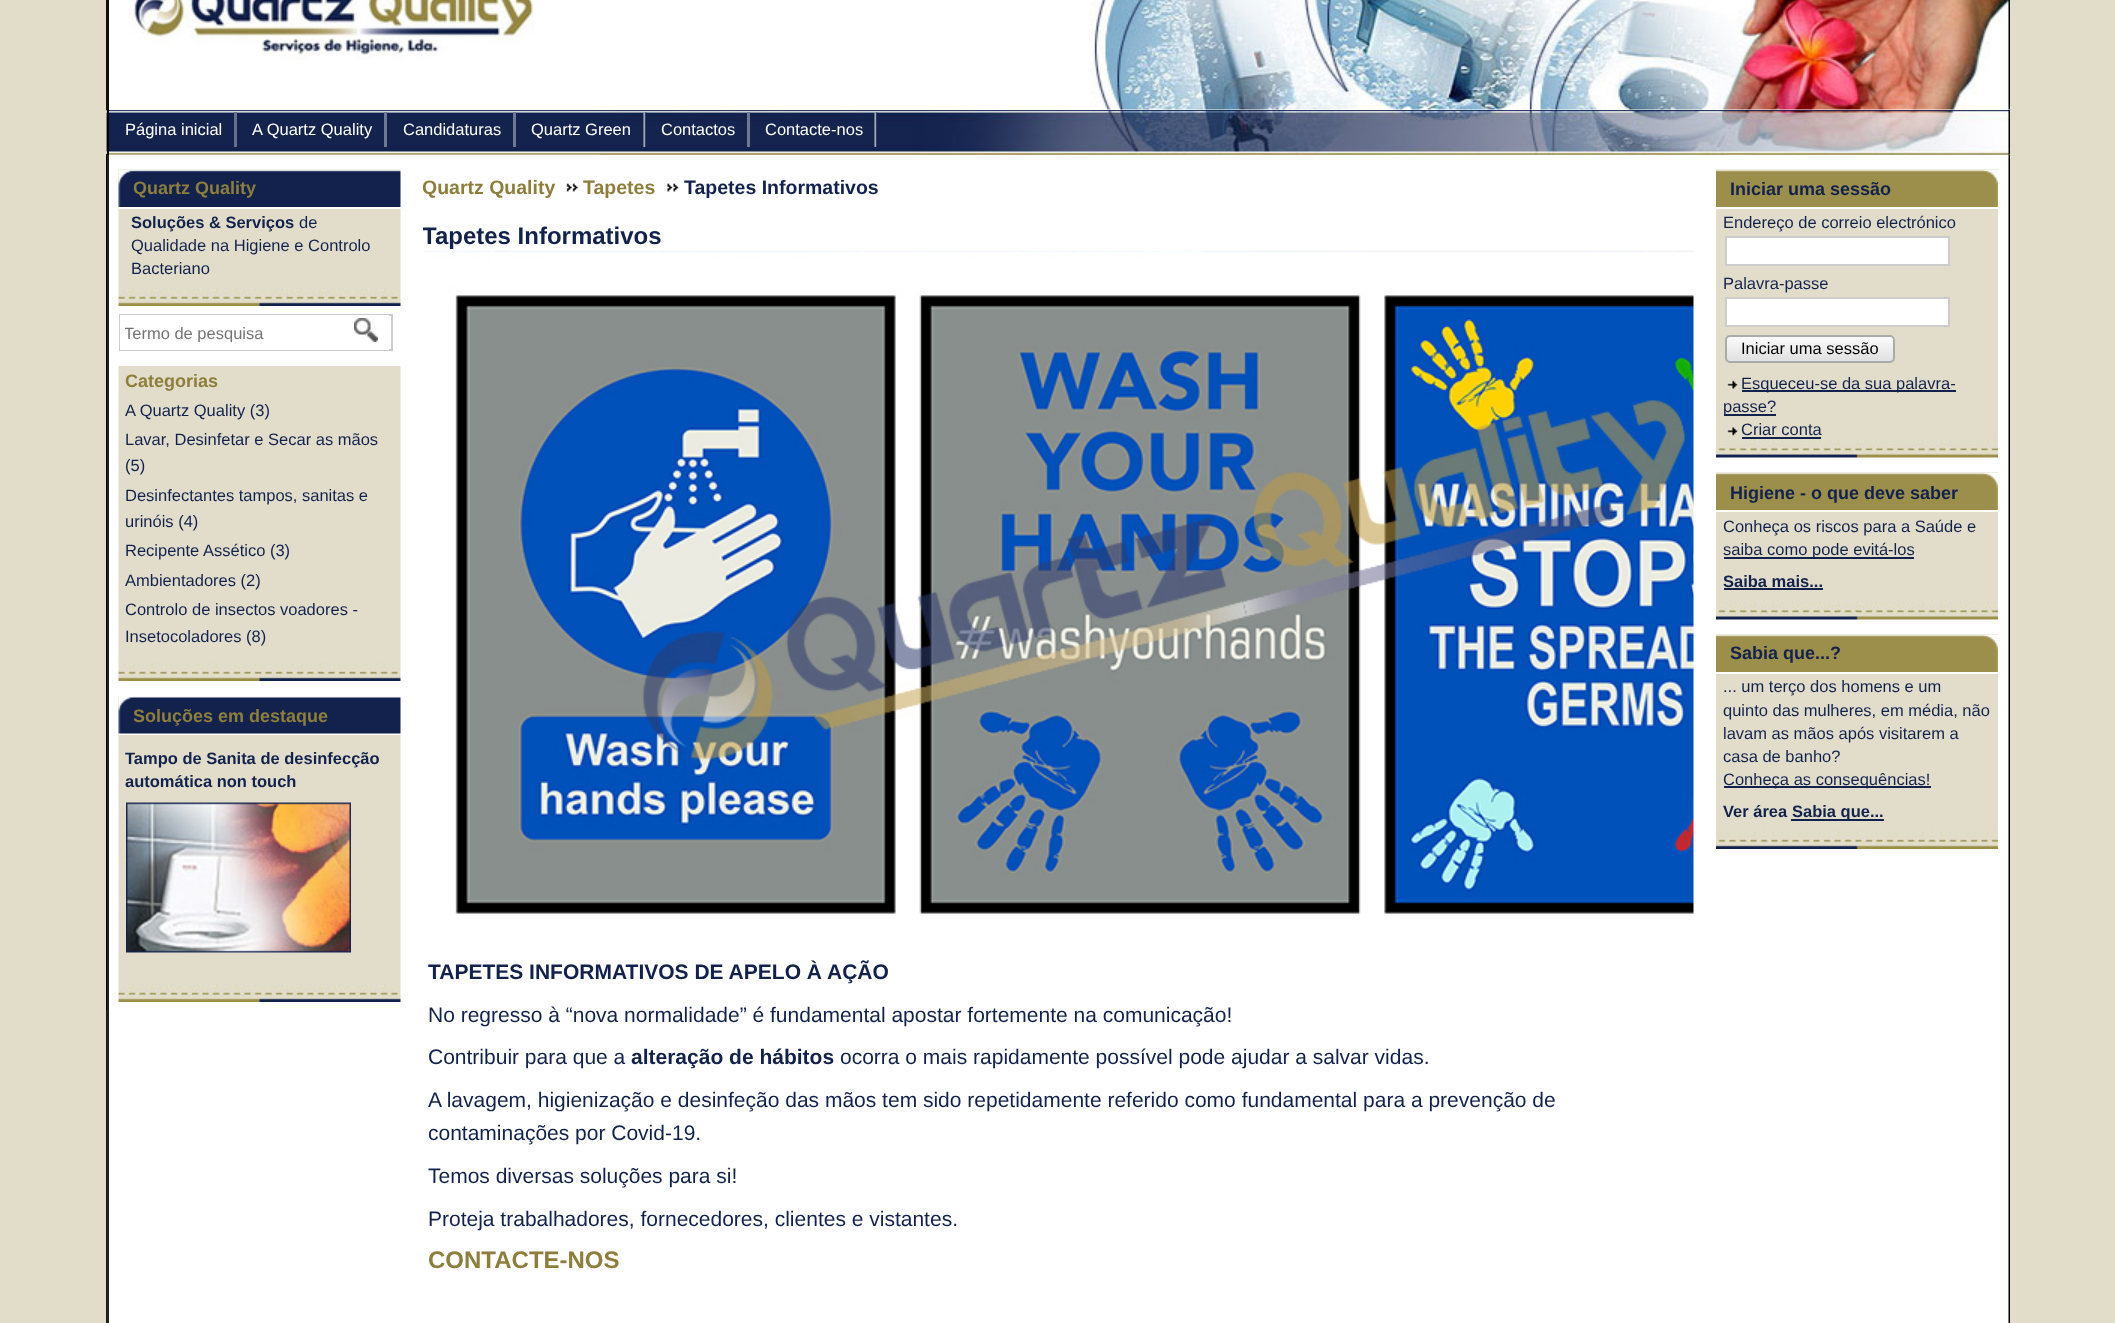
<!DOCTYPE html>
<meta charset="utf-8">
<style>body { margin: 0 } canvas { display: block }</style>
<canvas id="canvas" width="2115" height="1323"></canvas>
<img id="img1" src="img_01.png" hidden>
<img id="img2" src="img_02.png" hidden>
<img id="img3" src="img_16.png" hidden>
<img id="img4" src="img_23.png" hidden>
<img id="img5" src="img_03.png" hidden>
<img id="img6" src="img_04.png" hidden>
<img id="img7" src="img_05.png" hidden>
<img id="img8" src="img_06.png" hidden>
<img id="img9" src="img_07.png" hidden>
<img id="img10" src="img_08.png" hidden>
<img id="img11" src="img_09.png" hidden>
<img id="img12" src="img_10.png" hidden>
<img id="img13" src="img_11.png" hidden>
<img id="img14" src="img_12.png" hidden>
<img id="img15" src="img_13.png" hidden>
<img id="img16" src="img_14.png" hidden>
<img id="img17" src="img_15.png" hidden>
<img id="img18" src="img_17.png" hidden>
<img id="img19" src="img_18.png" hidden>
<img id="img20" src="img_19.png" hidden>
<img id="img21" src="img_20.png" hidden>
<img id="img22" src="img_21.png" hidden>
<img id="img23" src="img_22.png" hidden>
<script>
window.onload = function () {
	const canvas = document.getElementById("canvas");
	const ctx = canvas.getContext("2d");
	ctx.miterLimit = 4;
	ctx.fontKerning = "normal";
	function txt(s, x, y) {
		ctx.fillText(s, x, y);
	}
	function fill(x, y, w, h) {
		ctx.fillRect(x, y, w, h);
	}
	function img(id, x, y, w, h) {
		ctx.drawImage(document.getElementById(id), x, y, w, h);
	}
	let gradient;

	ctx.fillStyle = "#E1DDC9";
	fill(0, 0, 2115, 1323);
	ctx.fillStyle = "#1D1D1A";
	fill(106, 1010, 1, 313);
	ctx.fillStyle = "#040403";
	fill(106, 154, 1, 856);
	ctx.fillStyle = "#FFFFFF";
	fill(109, 0, 1901, 110);
	img("img1", 1090, 0, 920, 110);
	ctx.fillStyle = "#0F0F0F";
	fill(106, 0, 3, 110);
	img("img2", 129, 0, 405, 60);
	img("img3", 2008, 154, 2, 1);
	ctx.fillStyle = "#FFFFFF";
	fill(109, 155, 1900, 1168);
	img("img4", 2008, 154, 2, 1169);
	img("img5", 106, 110, 1904, 45);
	img("img6", 600, 110, 1410, 45);
	ctx.fillStyle = "#000000";
	fill(107, 110, 2, 45);
	ctx.fillStyle = "#656F8B";
	fill(234, 112, 3, 35);
	ctx.fillStyle = "#6F7892";
	fill(384, 112, 3, 35);
	fill(513, 112, 3, 35);
	img("img7", 643, 112, 4, 35);
	fill(747, 112, 3, 35);
	img("img7", 874, 112, 4, 35);
	ctx.fillStyle = "#212121";
	fill(107, 155, 2, 1168);
	img("img8", 118, 169, 283, 137);
	ctx.fillStyle = "#FFFFFF";
	fill(119, 170, 282, 39);
	img("img9", 118, 169, 283, 38);
	ctx.strokeStyle = "#CCCCCC";
	ctx.lineWidth = 2;
	ctx.strokeRect(120, 315, 272, 35);
	fill(120, 315, 269, 35);
	img("img10", 354, 318, 24, 24);
	img("img11", 118, 366, 283, 315);
	img("img12", 118, 696, 283, 306);
	fill(119, 696, 282, 39);
	img("img13", 118, 696, 283, 38);
	img("img14", 126, 802, 225, 151);
	img("img15", 566, 183, 12, 9);
	img("img16", 667, 183, 12, 9);
	img("img17", 423, 250, 1271, 664);
	img("img18", 1716, 169, 282, 289);
	fill(1716, 170, 282, 39);
	img("img19", 1716, 169, 282, 38);
	ctx.beginPath();
	ctx.rect(1726, 237, 223, 28);
	ctx.fill();
	ctx.stroke();
	ctx.beginPath();
	ctx.rect(1726, 298, 223, 28);
	ctx.fill();
	ctx.stroke();
	ctx.save();
	ctx.beginPath();
	ctx.roundRect(1725, 335, 170, 28, 5);
	ctx.clip();
	gradient = ctx.createLinearGradient(1810, 336, 1810, 362);
	gradient.addColorStop(0.1, "#F9F9F9");
	gradient.addColorStop(0.9, "#E2E2E2");
	ctx.fillStyle = gradient;
	fill(1725, 336, 170, 26);
	ctx.restore();
	ctx.beginPath();
	ctx.roundRect(1726, 336, 168, 26, 4);
	ctx.strokeStyle = "#AAAAAA";
	ctx.stroke();
	img("img20", 1727, 380, 11, 9);
	ctx.fillStyle = "#13224D";
	fill(1742, 390, 214, 2);
	fill(1724, 414, 52, 2);
	img("img21", 1727, 427, 11, 9);
	fill(1742, 437, 79, 2);
	img("img22", 1716, 472, 282, 148);
	ctx.fillStyle = "#FFFFFF";
	fill(1716, 473, 282, 39);
	img("img19", 1716, 472, 282, 38);
	ctx.fillStyle = "#13224D";
	fill(1724, 557, 190, 2);
	fill(1724, 588, 99, 2);
	img("img23", 1716, 634, 282, 215);
	ctx.fillStyle = "#FFFFFF";
	fill(1716, 635, 282, 39);
	img("img19", 1716, 634, 282, 38);
	ctx.fillStyle = "#13224D";
	fill(1724, 786, 207, 2);
	fill(1791, 819, 93, 2);
	ctx.font = "16.5px Liberation Sans";
	ctx.fillStyle = "#FFFFFF";
	txt("Página inicial", 125, 135);
	txt("A Quartz Quality", 252, 135);
	txt("Candidaturas", 403, 135);
	txt("Quartz Green", 531, 135);
	txt("Contactos", 661, 135);
	txt("Contacte-nos", 765, 135);
	ctx.save();
	ctx.beginPath();
	ctx.rect(134, 170, 267, 39);
	ctx.clip();
	ctx.font = "bold 18px Liberation Sans";
	ctx.fillStyle = "#8D7E3B";
	txt("Quartz Quality", 133, 194);
	ctx.restore();
	ctx.font = "bold 16.5px Liberation Sans";
	ctx.fillStyle = "#13224D";
	txt("Soluções & Serviços", 131, 228);
	ctx.font = "16.5px Liberation Sans";
	txt("de", 299, 228);
	txt("Qualidade na Higiene e Controlo", 131, 251);
	txt("Bacteriano", 131, 274);
	ctx.save();
	ctx.beginPath();
	ctx.rect(125, 324, 213, 18);
	ctx.clip();
	ctx.fillStyle = "#757575";
	txt("Termo de pesquisa", 124, 339);
	ctx.restore();
	ctx.font = "bold 18px Liberation Sans";
	ctx.fillStyle = "#8D7E3B";
	txt("Categorias", 125, 387);
	ctx.font = "16.5px Liberation Sans";
	ctx.fillStyle = "#13224D";
	txt("A Quartz Quality (3)", 125, 416);
	txt("Lavar, Desinfetar e Secar as mãos", 125, 445);
	txt("(5)", 125, 471);
	txt("Desinfectantes tampos, sanitas e", 125, 501);
	txt("urinóis (4)", 125, 527);
	txt("Recipente Assético (3)", 125, 556);
	txt("Ambientadores (2)", 125, 586);
	txt("Controlo de insectos voadores -", 125, 615);
	txt("Insetocoladores (8)", 125, 642);
	ctx.save();
	ctx.beginPath();
	ctx.rect(134, 696, 267, 39);
	ctx.clip();
	ctx.font = "bold 18px Liberation Sans";
	ctx.fillStyle = "#8D7E3B";
	txt("Soluções em destaque", 133, 722);
	ctx.restore();
	ctx.font = "bold 16.5px Liberation Sans";
	txt("Tampo de Sanita de desinfecção", 125, 764);
	txt("automática non touch", 125, 787);
	ctx.font = "bold 19.5px Liberation Sans";
	ctx.fillStyle = "#8D7E3B";
	txt("Quartz Quality", 422, 194);
	txt("Tapetes", 583, 194);
	ctx.fillStyle = "#13224D";
	txt("Tapetes Informativos", 684, 194);
	ctx.save();
	ctx.beginPath();
	ctx.rect(423, 164, 1271, 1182);
	ctx.clip();
	ctx.font = "bold 24px Liberation Sans";
	txt("Tapetes Informativos", 422, 244);
	ctx.restore();
	ctx.font = "bold 21px Liberation Sans";
	txt("TAPETES INFORMATIVOS DE APELO À AÇÃO", 428, 979);
	ctx.font = "21px Liberation Sans";
	txt("No regresso à “nova normalidade” é fundamental apostar fortemente na comunicação!", 428, 1022);
	txt("Contribuir para que a", 428, 1064);
	ctx.font = "bold 21px Liberation Sans";
	txt("alteração de hábitos", 631, 1064);
	ctx.font = "21px Liberation Sans";
	txt("ocorra o mais rapidamente possível pode ajudar a salvar vidas.", 840, 1064);
	txt("A lavagem, higienização e desinfeção das mãos tem sido repetidamente referido como fundamental para a prevenção de", 428, 1107);
	txt("contaminações por Covid-19.", 428, 1140);
	txt("Temos diversas soluções para si!", 428, 1183);
	txt("Proteja trabalhadores, fornecedores, clientes e vistantes.", 428, 1226);
	ctx.font = "bold 24px Liberation Sans";
	ctx.fillStyle = "#8D7E3B";
	txt("CONTACTE-NOS", 428, 1268);
	ctx.font = "bold 18px Liberation Sans";
	ctx.fillStyle = "#13224D";
	txt("Iniciar uma sessão", 1730, 195);
	ctx.font = "16.5px Liberation Sans";
	txt("Endereço de correio electrónico", 1723, 228);
	txt("Palavra-passe", 1723, 289);
	ctx.fillStyle = "#000000";
	txt("Iniciar uma sessão", 1741, 354);
	ctx.fillStyle = "#13224D";
	txt("Esqueceu-se da sua palavra-", 1741, 389);
	txt("passe?", 1723, 412);
	txt("Criar conta", 1741, 435);
	ctx.font = "bold 18px Liberation Sans";
	txt("Higiene - o que deve saber", 1730, 499);
	ctx.font = "16.5px Liberation Sans";
	txt("Conheça os riscos para a Saúde e", 1723, 532);
	txt("saiba como pode evitá-los", 1723, 555);
	ctx.font = "bold 16.5px Liberation Sans";
	txt("Saiba mais...", 1723, 587);
	ctx.font = "bold 18px Liberation Sans";
	txt("Sabia que...?", 1730, 659);
	ctx.font = "16.5px Liberation Sans";
	txt("... um terço dos homens e um", 1723, 692);
	txt("quinto das mulheres, em média, não", 1723, 716);
	txt("lavam as mãos após visitarem a", 1723, 739);
	txt("casa de banho?", 1723, 762);
	txt("Conheça as consequências!", 1723, 785);
	ctx.font = "bold 16.5px Liberation Sans";
	txt("Ver área", 1723, 817);
	txt("Sabia que...", 1792, 817);
};
</script>
